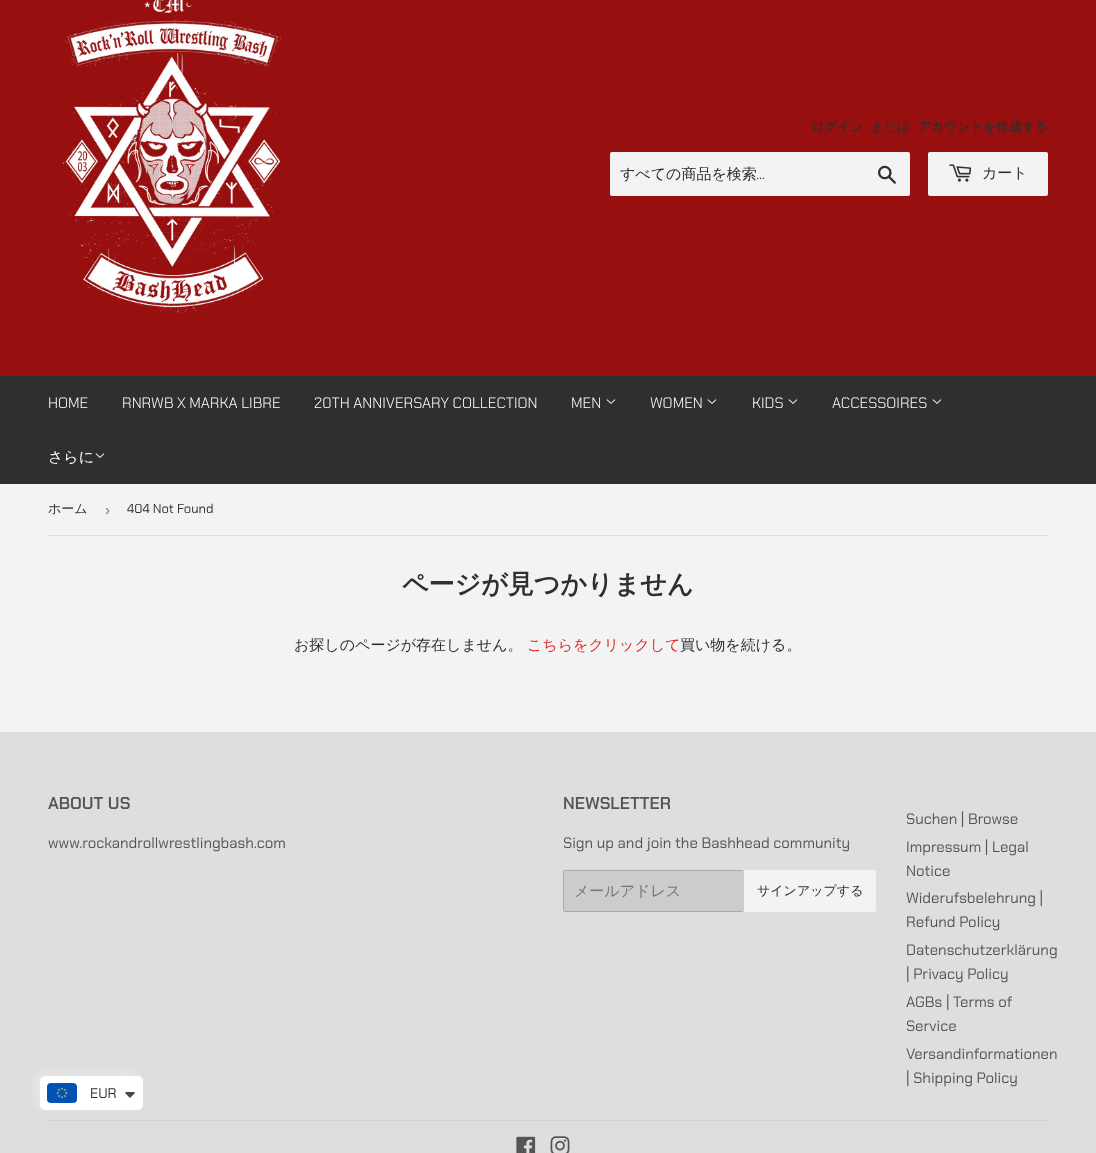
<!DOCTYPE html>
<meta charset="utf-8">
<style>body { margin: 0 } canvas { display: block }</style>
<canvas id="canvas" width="1096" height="1153"></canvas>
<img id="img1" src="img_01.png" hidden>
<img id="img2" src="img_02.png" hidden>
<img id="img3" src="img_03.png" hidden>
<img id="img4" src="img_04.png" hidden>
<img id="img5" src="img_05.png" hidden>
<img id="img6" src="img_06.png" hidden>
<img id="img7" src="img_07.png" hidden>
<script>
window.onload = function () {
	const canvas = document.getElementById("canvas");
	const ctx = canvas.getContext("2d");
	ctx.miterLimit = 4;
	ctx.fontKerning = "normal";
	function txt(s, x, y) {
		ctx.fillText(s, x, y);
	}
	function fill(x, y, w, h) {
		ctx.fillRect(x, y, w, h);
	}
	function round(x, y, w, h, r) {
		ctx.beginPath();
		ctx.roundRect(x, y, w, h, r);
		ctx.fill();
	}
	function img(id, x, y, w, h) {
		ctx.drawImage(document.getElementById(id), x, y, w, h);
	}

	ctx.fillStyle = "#F3F3F3";
	fill(0, 0, 1096, 1153);
	ctx.fillStyle = "#97100F";
	fill(0, 0, 1096, 376);
	img("img1", 60, 0, 222, 314);
	ctx.fillStyle = "#F3F3F3";
	round(610, 152, 300, 44, 2);
	img("img2", 878, 165, 18, 19);
	round(928, 152, 120, 44, 2);
	img("img3", 949, 164, 23, 18);
	ctx.fillStyle = "#2F2F2F";
	fill(0, 376, 1096, 108);
	img("img4", 606, 399, 10, 5);
	img("img4", 707, 399, 10, 5);
	img("img4", 788, 399, 10, 5);
	img("img4", 932, 399, 10, 5);
	img("img4", 95, 453, 10, 5);
	ctx.fillStyle = "#DEDEDE";
	fill(48, 535, 1000, 1);
	fill(0, 732, 1096, 421);
	ctx.fillStyle = "#CCCCCC";
	round(563, 870, 181, 42, 2);
	ctx.fillStyle = "#ABABAB";
	fill(564, 870, 179, 1);
	fill(564, 911, 179, 1);
	fill(563, 871, 1, 40);
	ctx.fillStyle = "#F3F3F3";
	ctx.beginPath();
	ctx.roundRect(744, 870, 132, 42, [0, 2, 2, 0]);
	ctx.fill();
	ctx.fillStyle = "#D1D1D1";
	fill(48, 1120, 1000, 1);
	img("img5", 516, 1136, 20, 17);
	img("img6", 550, 1136, 20, 17);
	ctx.fillStyle = "#E8E8E2";
	ctx.filter = "blur(4.5px)";
	ctx.beginPath();
	ctx.roundRect(36, 1072, 103, 34, 5);
	ctx.fill();
	ctx.filter = "none";
	ctx.fillStyle = "#FFFFFF";
	round(40, 1076, 103, 34, 5);
	img("img7", 47, 1083, 30, 20);
	ctx.fillStyle = "#474942";
	ctx.beginPath();
	ctx.moveTo(127, 1092);
	ctx.bezierCurveTo(126, 1092, 125.5, 1092.5, 125, 1093);
	ctx.lineTo(130, 1098);
	ctx.lineTo(135, 1093);
	ctx.lineTo(134, 1092);
	ctx.closePath();
	ctx.fill();
	ctx.font = "bold 12.75px WenQuanYi Zen Hei";
	ctx.fillStyle = "#2F2F2F";
	txt("ログイン", 811, 131);
	ctx.font = "500 12.75px WenQuanYi Zen Hei";
	txt("または", 871, 131);
	ctx.font = "bold 12.75px WenQuanYi Zen Hei";
	txt("アカウントを作成する", 918, 131);
	ctx.font = "500 15px WenQuanYi Zen Hei";
	txt("すべての商品を検索", 620, 179);
	ctx.font = "300 15px Chakra Petch";
	txt("...", 756, 179);
	ctx.font = "500 15px WenQuanYi Zen Hei";
	txt("カート", 982, 178);
	ctx.font = "300 15px Chakra Petch";
	ctx.fillStyle = "#FFFFFF";
	txt("HOME", 48, 408);
	txt("RNRWB X MARKA LIBRE", 122, 408);
	txt("20TH ANNIVERSARY COLLECTION", 314, 408);
	txt("MEN", 571, 408);
	txt("WOMEN", 650, 408);
	txt("KIDS", 752, 408);
	txt("ACCESSOIRES", 832, 408);
	ctx.font = "500 15px WenQuanYi Zen Hei";
	txt("さらに", 48, 462);
	ctx.font = "500 13px WenQuanYi Zen Hei";
	ctx.fillStyle = "#2F2F2F";
	txt("ホーム", 48, 513);
	ctx.font = "15px Liberation Sans";
	ctx.fillStyle = "#767676";
	txt("›", 105, 515);
	ctx.font = "13px Chakra Petch";
	ctx.fillStyle = "#2F2F2F";
	txt("404 Not Found", 127, 513);
	ctx.font = "bold 26px WenQuanYi Zen Hei";
	txt("ページが見つかりません", 402, 593);
	ctx.font = "500 15px WenQuanYi Zen Hei";
	txt("お探しのページが存在しません。", 294, 650);
	ctx.fillStyle = "#E32C2B";
	txt("こちらをクリックして", 527, 650);
	ctx.fillStyle = "#2F2F2F";
	txt("買い物を続ける。", 680, 650);
	ctx.font = "600 17px Chakra Petch";
	ctx.fillStyle = "#545454";
	txt("ABOUT US", 48, 809);
	ctx.font = "15px Chakra Petch";
	txt("www.rockandrollwrestlingbash.com", 48, 848);
	ctx.font = "600 17px Chakra Petch";
	txt("NEWSLETTER", 563, 809);
	ctx.font = "15px Chakra Petch";
	txt("Sign up and join the Bashhead community", 563, 848);
	ctx.font = "500 15px WenQuanYi Zen Hei";
	ctx.fillStyle = "#767676";
	txt("メールアドレス", 574, 896);
	ctx.font = "500 13px WenQuanYi Zen Hei";
	ctx.fillStyle = "#2F2F2F";
	txt("サインアップする", 757, 895);
	ctx.font = "15px Chakra Petch";
	ctx.fillStyle = "#545454";
	txt("Suchen | Browse", 906, 824);
	txt("Impressum | Legal", 906, 852);
	txt("Notice", 906, 876);
	txt("Widerufsbelehrung |", 906, 903);
	txt("Refund Policy", 906, 927);
	txt("Datenschutzerklärung", 906, 955);
	txt("| Privacy Policy", 906, 979);
	txt("AGBs | Terms of", 906, 1007);
	txt("Service", 906, 1031);
	txt("Versandinformationen", 906, 1059);
	txt("| Shipping Policy", 906, 1083);
	ctx.font = "14px Chakra Petch";
	ctx.fillStyle = "#2F2F2F";
	txt("EUR", 90, 1098);
};
</script>
